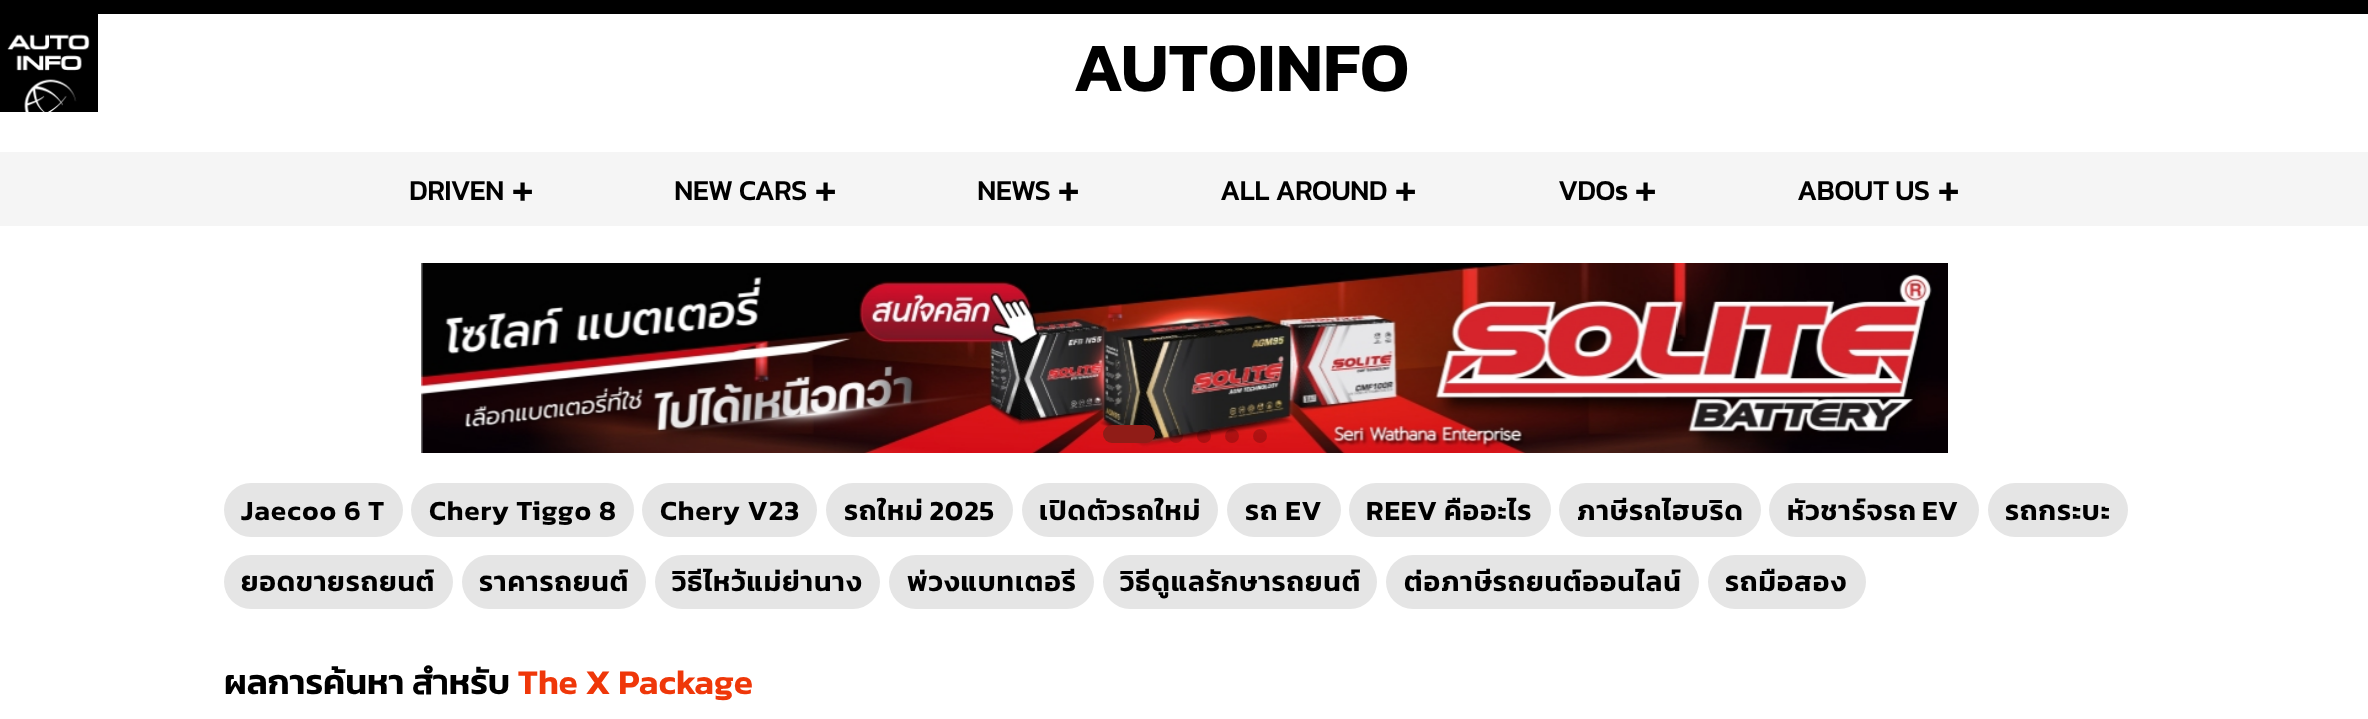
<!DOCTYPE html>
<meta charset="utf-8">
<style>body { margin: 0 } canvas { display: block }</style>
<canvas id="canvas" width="2368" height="719"></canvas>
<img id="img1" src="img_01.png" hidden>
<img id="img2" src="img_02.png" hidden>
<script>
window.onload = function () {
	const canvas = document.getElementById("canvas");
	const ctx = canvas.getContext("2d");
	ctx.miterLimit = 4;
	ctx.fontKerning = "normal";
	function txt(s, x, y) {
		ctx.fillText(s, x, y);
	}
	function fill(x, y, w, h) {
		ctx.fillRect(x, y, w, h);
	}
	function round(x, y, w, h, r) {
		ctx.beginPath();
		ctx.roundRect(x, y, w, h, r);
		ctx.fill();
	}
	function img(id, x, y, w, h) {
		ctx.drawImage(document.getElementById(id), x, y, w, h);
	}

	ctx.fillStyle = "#FFFFFF";
	fill(0, 0, 2368, 719);
	ctx.fillStyle = "#000000";
	fill(0, 0, 2368, 14);
	img("img1", 0, 14, 98, 98);
	ctx.fillStyle = "#F5F5F5";
	fill(0, 152, 2368, 74);
	img("img2", 421, 263, 1527, 190);
	ctx.fillStyle = "#901C17";
	round(1103, 425, 52, 18, 9);
	ctx.fillStyle = "rgba(0, 0, 0, 0.2)";
	ctx.beginPath();
	ctx.arc(1176, 436, 7, 0, Math.PI * 2);
	ctx.fill();
	ctx.beginPath();
	ctx.arc(1204, 436, 7, 0, Math.PI * 2);
	ctx.fill();
	ctx.beginPath();
	ctx.arc(1232, 436, 7, 0, Math.PI * 2);
	ctx.fill();
	ctx.beginPath();
	ctx.arc(1260, 436, 7, 0, Math.PI * 2);
	ctx.fill();
	ctx.fillStyle = "#E5E5E5";
	round(224, 483, 179, 54, 27);
	round(411, 483, 223, 54, 27);
	round(642, 483, 175, 54, 27);
	round(826, 483, 187, 54, 27);
	round(1022, 483, 196, 54, 27);
	round(1227, 483, 114, 54, 27);
	round(1349, 483, 202, 54, 27);
	round(1559, 483, 202, 54, 27);
	round(1769, 483, 210, 54, 27);
	round(1988, 483, 140, 54, 27);
	round(224, 555, 229, 54, 27);
	round(462, 555, 184, 54, 27);
	round(655, 555, 225, 54, 27);
	round(889, 555, 205, 54, 27);
	round(1103, 555, 274, 54, 27);
	round(1386, 555, 313, 54, 27);
	round(1708, 555, 158, 54, 27);
	ctx.font = "600 70px Kanit";
	ctx.fillStyle = "#000000";
	txt("AUTOINFO", 1073, 91);
	ctx.font = "bold 28px Kanit";
	txt("DRIVEN", 409, 200);
	ctx.font = "49px Kanit";
	txt("+", 511, 205);
	ctx.font = "bold 28px Kanit";
	txt("NEW CARS", 674, 200);
	ctx.font = "49px Kanit";
	txt("+", 814, 205);
	ctx.font = "bold 28px Kanit";
	txt("NEWS", 977, 200);
	ctx.font = "49px Kanit";
	txt("+", 1057, 205);
	ctx.font = "bold 28px Kanit";
	txt("ALL AROUND", 1220, 200);
	ctx.font = "49px Kanit";
	txt("+", 1394, 205);
	ctx.font = "bold 28px Kanit";
	txt("VDOs", 1558, 200);
	ctx.font = "49px Kanit";
	txt("+", 1634, 205);
	ctx.font = "bold 28px Kanit";
	txt("ABOUT US", 1797, 200);
	ctx.font = "49px Kanit";
	txt("+", 1937, 205);
	ctx.letterSpacing = "0.9px";
	ctx.font = "600 28px Kanit";
	txt("Jaecoo 6 T", 241, 520);
	txt("Chery Tiggo 8", 429, 520);
	txt("Chery V23", 660, 520);
	ctx.wordSpacing = "-1px";
	txt("รถใหม่ 2025", 844, 520);
	ctx.wordSpacing = "0px";
	txt("เปิดตัวรถใหม่", 1039, 520);
	txt("รถ EV", 1245, 520);
	ctx.wordSpacing = "-1px";
	txt("REEV คืออะไร", 1366, 520);
	ctx.wordSpacing = "0px";
	txt("ภาษีรถไฮบริด", 1577, 520);
	ctx.wordSpacing = "-2px";
	txt("หัวชาร์จรถ EV", 1787, 520);
	ctx.wordSpacing = "0px";
	txt("รถกระบะ", 2005, 520);
	txt("ยอดขายรถยนต์", 241, 591);
	txt("ราคารถยนต์", 479, 591);
	txt("วิธีไหว้แม่ย่านาง", 672, 591);
	txt("พ่วงแบทเตอรี", 907, 591);
	txt("วิธีดูแลรักษารถยนต์", 1120, 591);
	txt("ต่อภาษีรถยนต์ออนไลน์", 1404, 591);
	txt("รถมือสอง", 1725, 591);
	ctx.letterSpacing = "0px";
	ctx.font = "600 35px Kanit";
	txt("ผลการค้นหา สำหรับ", 224, 694);
	ctx.fillStyle = "#EF3709";
	txt("The X Package", 518, 694);
};
</script>
